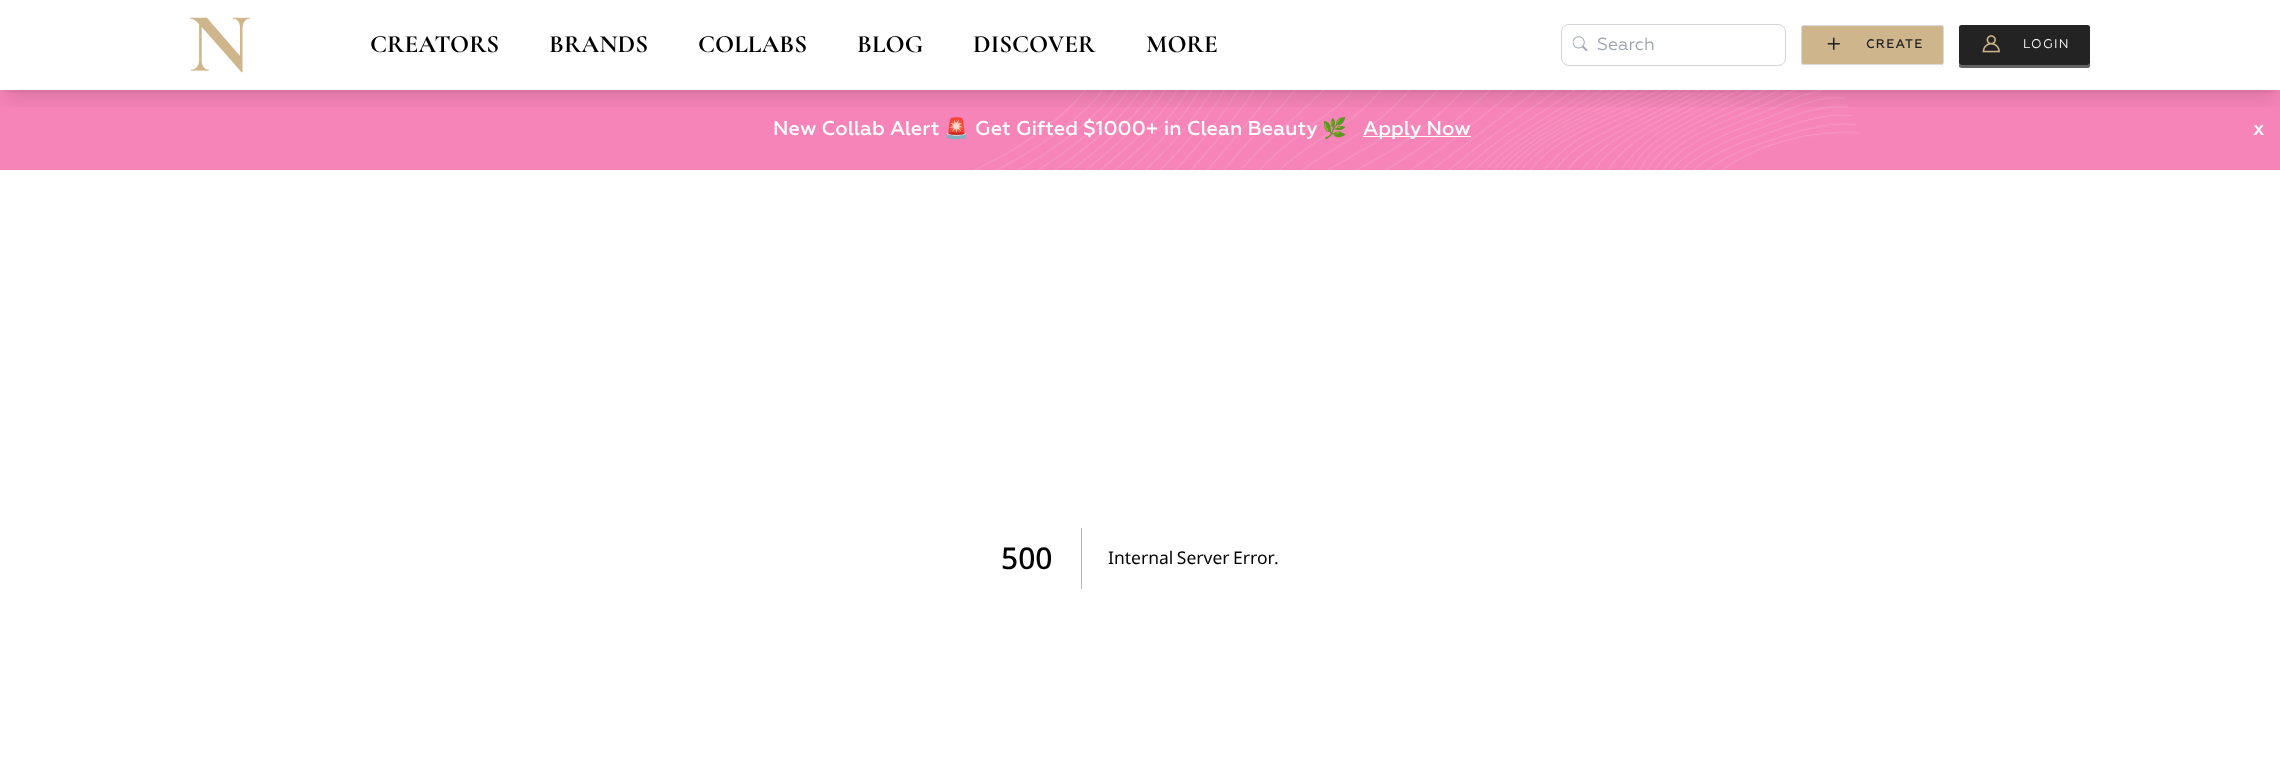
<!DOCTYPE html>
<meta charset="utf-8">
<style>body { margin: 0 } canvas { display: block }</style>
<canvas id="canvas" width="2280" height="775"></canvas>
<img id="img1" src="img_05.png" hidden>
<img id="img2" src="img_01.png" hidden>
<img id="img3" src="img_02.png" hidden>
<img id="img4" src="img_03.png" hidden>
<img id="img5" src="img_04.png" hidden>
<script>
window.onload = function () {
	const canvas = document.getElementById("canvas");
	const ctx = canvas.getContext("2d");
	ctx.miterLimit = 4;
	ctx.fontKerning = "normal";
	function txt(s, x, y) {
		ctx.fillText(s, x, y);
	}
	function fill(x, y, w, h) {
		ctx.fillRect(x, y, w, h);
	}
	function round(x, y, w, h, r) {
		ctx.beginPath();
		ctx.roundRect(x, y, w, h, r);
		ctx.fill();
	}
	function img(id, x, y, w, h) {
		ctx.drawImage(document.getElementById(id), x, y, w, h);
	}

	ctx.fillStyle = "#FFFFFF";
	fill(0, 0, 2280, 775);
	ctx.fillStyle = "#F684B8";
	fill(0, 90, 2280, 80);
	img("img1", 974, 90, 886, 80);
	ctx.save();
	ctx.beginPath();
	ctx.rect(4, 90, 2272, 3);
	ctx.clip();
	ctx.fillStyle = "rgba(0, 0, 0, 0.1)";
	ctx.filter = "blur(4px)";
	ctx.beginPath();
	ctx.rect(5, 10, 2270, 80);
	ctx.fill();
	ctx.filter = "none";
	ctx.restore();
	ctx.save();
	ctx.beginPath();
	ctx.rect(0, 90, 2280, 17);
	ctx.clip();
	ctx.fillStyle = "rgba(0, 0, 0, 0.1)";
	ctx.filter = "blur(9.5px)";
	ctx.beginPath();
	ctx.rect(4, 16, 2272, 83);
	ctx.fill();
	ctx.filter = "none";
	ctx.restore();
	img("img2", 190, 17, 60, 56);
	ctx.beginPath();
	ctx.roundRect(1561.5, 24.5, 224, 41, 7.5);
	ctx.strokeStyle = "#D1D5DB";
	ctx.stroke();
	img("img3", 1573, 36, 15, 15);
	ctx.fillStyle = "#FAFAFA";
	ctx.beginPath();
	ctx.moveTo(1801, 29);
	ctx.lineTo(1801, 66);
	ctx.bezierCurveTo(1801, 67, 1802, 68, 1804, 68);
	ctx.lineTo(1942, 68);
	ctx.bezierCurveTo(1943, 68, 1944, 67, 1944, 66);
	ctx.lineTo(1944, 29);
	ctx.lineTo(1944, 62);
	ctx.bezierCurveTo(1944, 64, 1943, 65, 1941, 65);
	ctx.lineTo(1804, 65);
	ctx.bezierCurveTo(1802, 65, 1801, 64, 1801, 62);
	ctx.closePath();
	ctx.fill();
	ctx.fillStyle = "#CEB58C";
	ctx.beginPath();
	ctx.roundRect(1801.5, 25.5, 142, 39, 2);
	ctx.fill();
	ctx.strokeStyle = "#D9D9D9";
	ctx.stroke();
	img("img4", 1827, 37, 13, 13);
	ctx.fillStyle = "#636363";
	ctx.beginPath();
	ctx.moveTo(1959, 64);
	ctx.lineTo(1959, 66);
	ctx.bezierCurveTo(1959, 67, 1960, 68, 1962, 68);
	ctx.lineTo(2088, 68);
	ctx.bezierCurveTo(2089, 68, 2090, 67, 2090, 66);
	ctx.lineTo(2090, 62);
	ctx.bezierCurveTo(2090, 64, 2089, 65, 2088, 65);
	ctx.lineTo(1961, 65);
	ctx.bezierCurveTo(1960, 65, 1959, 64, 1959, 64);
	ctx.closePath();
	ctx.fill();
	ctx.fillStyle = "#232323";
	round(1959, 25, 131, 40, 2.5);
	img("img5", 1982, 35, 18, 18);
	ctx.fillStyle = "#FFFFFF";
	fill(1363, 136, 108, 1);
	ctx.fillStyle = "#B3B3B3";
	fill(1081, 528, 1, 61);
	ctx.font = "bold 25px Cormorant Garamond";
	ctx.fillStyle = "#000000";
	txt("CREATORS", 370, 52);
	txt("BRANDS", 549, 52);
	txt("COLLABS", 698, 52);
	txt("BLOG", 857, 52);
	txt("DISCOVER", 973, 52);
	txt("MORE", 1146, 52);
	ctx.font = "17.5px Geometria";
	ctx.fillStyle = "#9CA3AF";
	txt("Search", 1597, 50);
	ctx.letterSpacing = "1.25px";
	ctx.font = "500 12.5px Geometria";
	ctx.fillStyle = "#232323";
	txt("CREATE", 1866, 48);
	ctx.font = "12.5px Geometria";
	ctx.fillStyle = "#FFFFFF";
	txt("LOGIN", 2023, 48);
	ctx.letterSpacing = "0px";
	ctx.font = "500 20px Geometria";
	txt("New Collab Alert", 773, 135);
	ctx.font = "20px Noto Color Emoji";
	txt("🚨", 944, 135);
	ctx.font = "500 20px Geometria";
	txt("Get Gifted $1000+ in Clean Beauty", 975, 135);
	ctx.font = "20px Noto Color Emoji";
	txt("🌿", 1322, 135);
	ctx.font = "500 20px Geometria";
	txt("Apply Now", 1363, 135);
	txt("x", 2253, 135);
	ctx.font = "500 30px Noto Sans";
	ctx.fillStyle = "#000000";
	txt("500", 1001, 569);
	ctx.wordSpacing = "-1px";
	ctx.font = "17.5px Noto Sans";
	txt("Internal Server Error", 1108, 564);
	ctx.wordSpacing = "0px";
	txt(".", 1274, 564);
};
</script>
